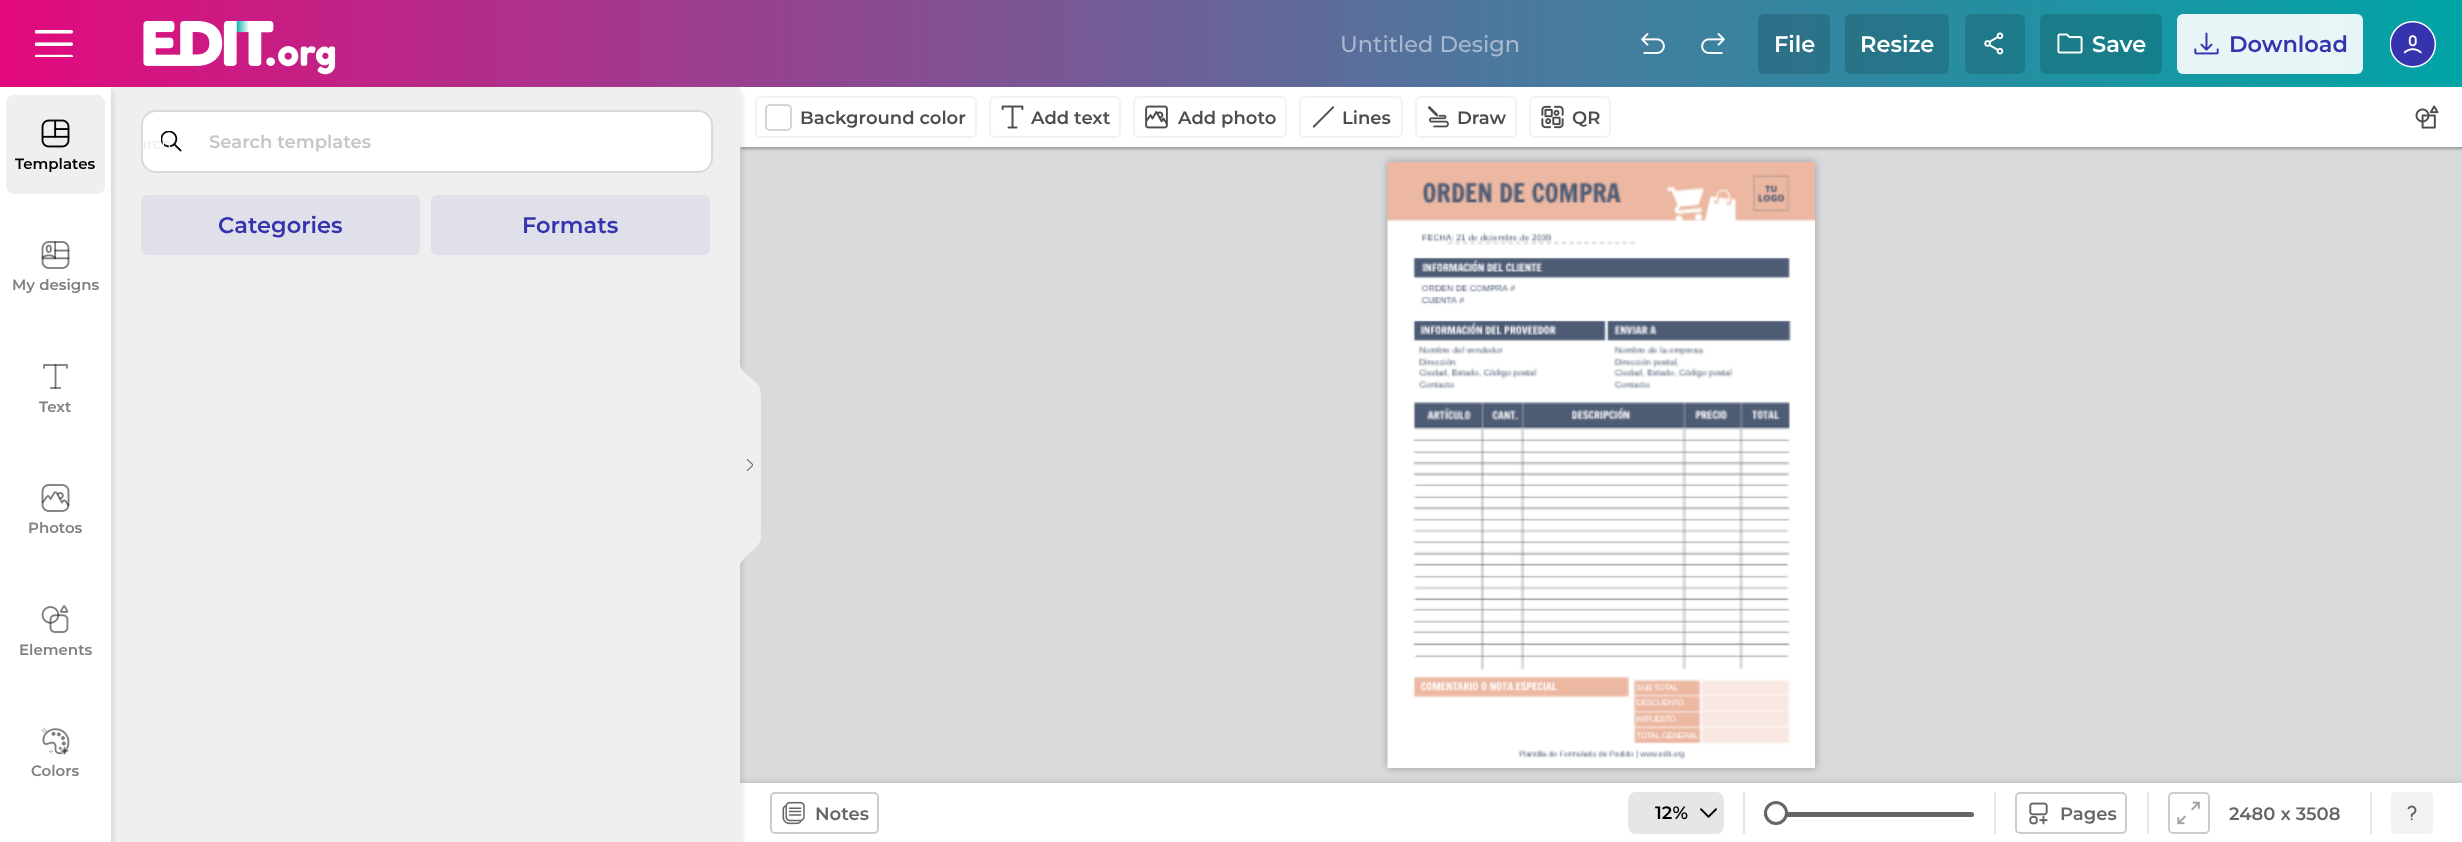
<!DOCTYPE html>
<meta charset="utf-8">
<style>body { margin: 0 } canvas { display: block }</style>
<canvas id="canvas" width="2462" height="842"></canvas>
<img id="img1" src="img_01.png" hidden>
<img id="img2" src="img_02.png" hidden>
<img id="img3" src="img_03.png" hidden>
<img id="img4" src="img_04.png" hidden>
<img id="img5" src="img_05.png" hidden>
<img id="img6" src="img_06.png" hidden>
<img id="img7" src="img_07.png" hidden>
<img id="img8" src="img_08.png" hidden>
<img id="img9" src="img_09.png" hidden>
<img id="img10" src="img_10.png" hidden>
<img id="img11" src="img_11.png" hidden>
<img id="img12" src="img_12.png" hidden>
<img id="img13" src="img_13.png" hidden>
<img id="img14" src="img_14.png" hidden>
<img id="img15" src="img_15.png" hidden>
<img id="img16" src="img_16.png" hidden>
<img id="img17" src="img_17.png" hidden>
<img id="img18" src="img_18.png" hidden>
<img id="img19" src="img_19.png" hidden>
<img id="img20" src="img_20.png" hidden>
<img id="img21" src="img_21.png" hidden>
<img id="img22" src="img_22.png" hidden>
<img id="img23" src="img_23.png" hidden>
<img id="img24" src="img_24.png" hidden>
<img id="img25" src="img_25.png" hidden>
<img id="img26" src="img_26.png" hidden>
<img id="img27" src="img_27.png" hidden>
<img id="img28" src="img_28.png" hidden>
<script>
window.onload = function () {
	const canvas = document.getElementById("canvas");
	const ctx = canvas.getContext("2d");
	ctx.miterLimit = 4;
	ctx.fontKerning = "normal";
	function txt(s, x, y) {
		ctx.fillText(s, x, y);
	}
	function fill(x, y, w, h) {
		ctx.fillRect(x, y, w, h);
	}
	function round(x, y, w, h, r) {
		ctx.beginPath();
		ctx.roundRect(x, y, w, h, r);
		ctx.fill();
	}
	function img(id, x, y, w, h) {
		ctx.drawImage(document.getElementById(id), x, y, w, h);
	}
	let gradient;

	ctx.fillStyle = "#FFFFFF";
	fill(0, 0, 2462, 842);
	ctx.fillStyle = "#D8DADB";
	fill(740, 147, 1722, 636);
	ctx.fillStyle = "rgba(0, 0, 0, 0.3)";
	ctx.filter = "blur(1.5px)";
	ctx.beginPath();
	ctx.rect(741, 89, 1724, 60);
	ctx.fill();
	ctx.filter = "none";
	ctx.fillStyle = "#FFFFFF";
	fill(740, 87, 1722, 60);
	ctx.fillStyle = "rgba(0, 0, 0, 0.16)";
	ctx.filter = "blur(3px)";
	ctx.beginPath();
	ctx.rect(740, 783, 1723, 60);
	ctx.fill();
	ctx.filter = "none";
	ctx.fillStyle = "#FFFFFF";
	fill(740, 783, 1722, 59);
	ctx.save();
	ctx.beginPath();
	ctx.rect(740, 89, 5, 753);
	ctx.clip();
	ctx.fillStyle = "rgba(0, 0, 0, 0.16)";
	ctx.filter = "blur(4.5px)";
	ctx.beginPath();
	ctx.rect(0, 92, 740, 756);
	ctx.fill();
	ctx.filter = "none";
	ctx.restore();
	ctx.fillStyle = "#EFEFEF";
	ctx.beginPath();
	ctx.moveTo(752, 551);
	ctx.bezierCurveTo(762, 544, 761, 538, 761, 529);
	ctx.lineTo(761, 401);
	ctx.bezierCurveTo(761, 392, 762, 386, 752, 379);
	ctx.bezierCurveTo(740, 370, 738, 361, 738, 361);
	ctx.lineTo(738, 569);
	ctx.bezierCurveTo(738, 569, 740, 560, 752, 551);
	ctx.fill();
	fill(111, 87, 629, 755);
	ctx.save();
	ctx.beginPath();
	ctx.rect(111, 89, 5, 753);
	ctx.clip();
	ctx.fillStyle = "rgba(0, 0, 0, 0.16)";
	ctx.filter = "blur(4.5px)";
	ctx.beginPath();
	ctx.rect(0, 92, 111, 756);
	ctx.fill();
	ctx.filter = "none";
	ctx.restore();
	gradient = ctx.createLinearGradient(0, 44, 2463, 43);
	gradient.addColorStop(0, "#E3097E");
	gradient.addColorStop(0.6, "#4E779D");
	gradient.addColorStop(1, "#00A4A6");
	ctx.fillStyle = gradient;
	fill(0, 0, 2462, 87);
	img("img1", 35, 30, 38, 27);
	img("img2", 143, 21, 193, 54);
	img("img3", 1641, 33, 24, 21);
	img("img4", 1701, 33, 24, 21);
	ctx.fillStyle = "rgba(0, 0, 0, 0.15)";
	round(1758, 14, 72, 60, 6);
	round(1845, 14, 104, 60, 6);
	round(1965, 14, 60, 60, 6);
	img("img5", 1984, 32, 20, 23);
	round(2040, 14, 122, 60, 6);
	img("img6", 2057, 33, 26, 21);
	ctx.fillStyle = "rgba(255, 255, 255, 0.9)";
	round(2177, 14, 186, 60, 6);
	img("img7", 2194, 32, 25, 23);
	img("img8", 2390, 21, 46, 47);
	ctx.fillStyle = "#EFEFEF";
	round(6, 95, 99, 99, 8);
	img("img9", 41, 119, 29, 29);
	img("img10", 41, 241, 29, 28);
	img("img11", 43, 364, 25, 25);
	img("img12", 41, 484, 29, 28);
	img("img13", 41, 605, 28, 28);
	img("img14", 41, 727, 29, 28);
	ctx.fillStyle = "#FFFFFF";
	ctx.beginPath();
	ctx.roundRect(142, 111, 570, 61, 14);
	ctx.fill();
	ctx.strokeStyle = "#D7DADB";
	ctx.lineWidth = 2;
	ctx.stroke();
	img("img15", 161, 131, 21, 21);
	ctx.fillStyle = "#E0E0EA";
	round(141, 195, 279, 60, 6);
	round(431, 195, 279, 60, 6);
	img("img16", 747, 459, 6, 13);
	ctx.beginPath();
	ctx.roundRect(756, 97, 220, 40, 5);
	ctx.strokeStyle = "#F2F2F2";
	ctx.stroke();
	ctx.beginPath();
	ctx.roundRect(766, 105, 25, 25, 4);
	ctx.strokeStyle = "#D6D4D4";
	ctx.stroke();
	ctx.beginPath();
	ctx.roundRect(990, 97, 130, 40, 5);
	ctx.strokeStyle = "#F2F2F2";
	ctx.stroke();
	img("img17", 1001, 105, 23, 24);
	ctx.beginPath();
	ctx.roundRect(1134, 97, 152, 40, 5);
	ctx.stroke();
	img("img18", 1145, 105, 23, 24);
	ctx.beginPath();
	ctx.roundRect(1300, 97, 102, 40, 5);
	ctx.stroke();
	img("img19", 1312, 106, 23, 22);
	ctx.beginPath();
	ctx.roundRect(1416, 97, 100, 40, 5);
	ctx.stroke();
	img("img20", 1427, 106, 22, 22);
	ctx.beginPath();
	ctx.roundRect(1530, 97, 80, 40, 5);
	ctx.stroke();
	img("img21", 1541, 105, 23, 24);
	img("img22", 2415, 105, 24, 24);
	ctx.fillStyle = "rgba(0, 0, 0, 0.3)";
	ctx.filter = "blur(4px)";
	ctx.beginPath();
	ctx.rect(1388, 162, 427, 606);
	ctx.fill();
	ctx.filter = "none";
	img("img23", 1387, 162, 428, 606);
	ctx.beginPath();
	ctx.roundRect(771, 793, 107, 40, 4);
	ctx.strokeStyle = "#CCCCCC";
	ctx.stroke();
	img("img24", 782, 801, 23, 24);
	ctx.fillStyle = "#E6E6E6";
	fill(1743, 792, 2, 42);
	round(1628, 792, 96, 42, 8);
	img("img25", 1700, 808, 17, 10);
	ctx.fillStyle = "#666666";
	round(1764, 812, 210, 5, 2.5);
	ctx.fillStyle = "#FFFFFF";
	ctx.beginPath();
	ctx.arc(1776, 813, 10.5, 0, Math.PI * 2);
	ctx.fill();
	ctx.strokeStyle = "#666666";
	ctx.lineWidth = 3;
	ctx.stroke();
	ctx.fillStyle = "#E6E6E6";
	fill(1994, 792, 2, 42);
	ctx.beginPath();
	ctx.roundRect(2016, 793, 110, 40, 4);
	ctx.strokeStyle = "#CCCCCC";
	ctx.lineWidth = 2;
	ctx.stroke();
	img("img26", 2029, 802, 19, 23);
	fill(2147, 792, 2, 42);
	ctx.beginPath();
	ctx.roundRect(2169, 793, 40, 40, 4);
	ctx.stroke();
	img("img27", 2177, 801, 23, 24);
	fill(2370, 792, 2, 42);
	ctx.fillStyle = "#F2F2F2";
	round(2391, 792, 42, 42, 5);
	img("img28", 2407, 805, 10, 16);
	ctx.font = "500 22.5px Montserrat";
	ctx.fillStyle = "#A9B9CD";
	txt("Untitled Design", 1340, 52);
	ctx.font = "600 22.5px Montserrat";
	ctx.fillStyle = "#FFFFFF";
	txt("File", 1774, 52);
	txt("Resize", 1860, 52);
	txt("Save", 2092, 52);
	ctx.fillStyle = "#3533AD";
	txt("Download", 2229, 52);
	ctx.font = "15px Montserrat";
	ctx.fillStyle = "#EBEBEB";
	txt("arch", 138, 149);
	ctx.font = "600 15px Montserrat";
	ctx.fillStyle = "#000000";
	txt("Templates", 15, 169);
	ctx.fillStyle = "#808080";
	txt("My designs", 12, 290);
	txt("Text", 39, 412);
	txt("Photos", 28, 533);
	txt("Elements", 19, 655);
	txt("Colors", 31, 776);
	ctx.font = "600 18px Montserrat";
	ctx.fillStyle = "#C6C6C6";
	txt("Search templates", 209, 148);
	ctx.font = "600 22.5px Montserrat";
	ctx.fillStyle = "#3533AD";
	txt("Categories", 218, 233);
	txt("Formats", 522, 233);
	ctx.font = "600 18px Montserrat";
	ctx.fillStyle = "#4D4D4D";
	txt("Background color", 800, 124);
	txt("Add text", 1031, 124);
	txt("Add photo", 1178, 124);
	txt("Lines", 1342, 124);
	txt("Draw", 1457, 124);
	txt("QR", 1572, 124);
	ctx.fillStyle = "#666666";
	txt("Notes", 815, 820);
	ctx.fillStyle = "#000000";
	txt("12%", 1655, 819);
	ctx.fillStyle = "#666666";
	txt("Pages", 2060, 820);
	txt("2480 x 3508", 2229, 820);
};
</script>
